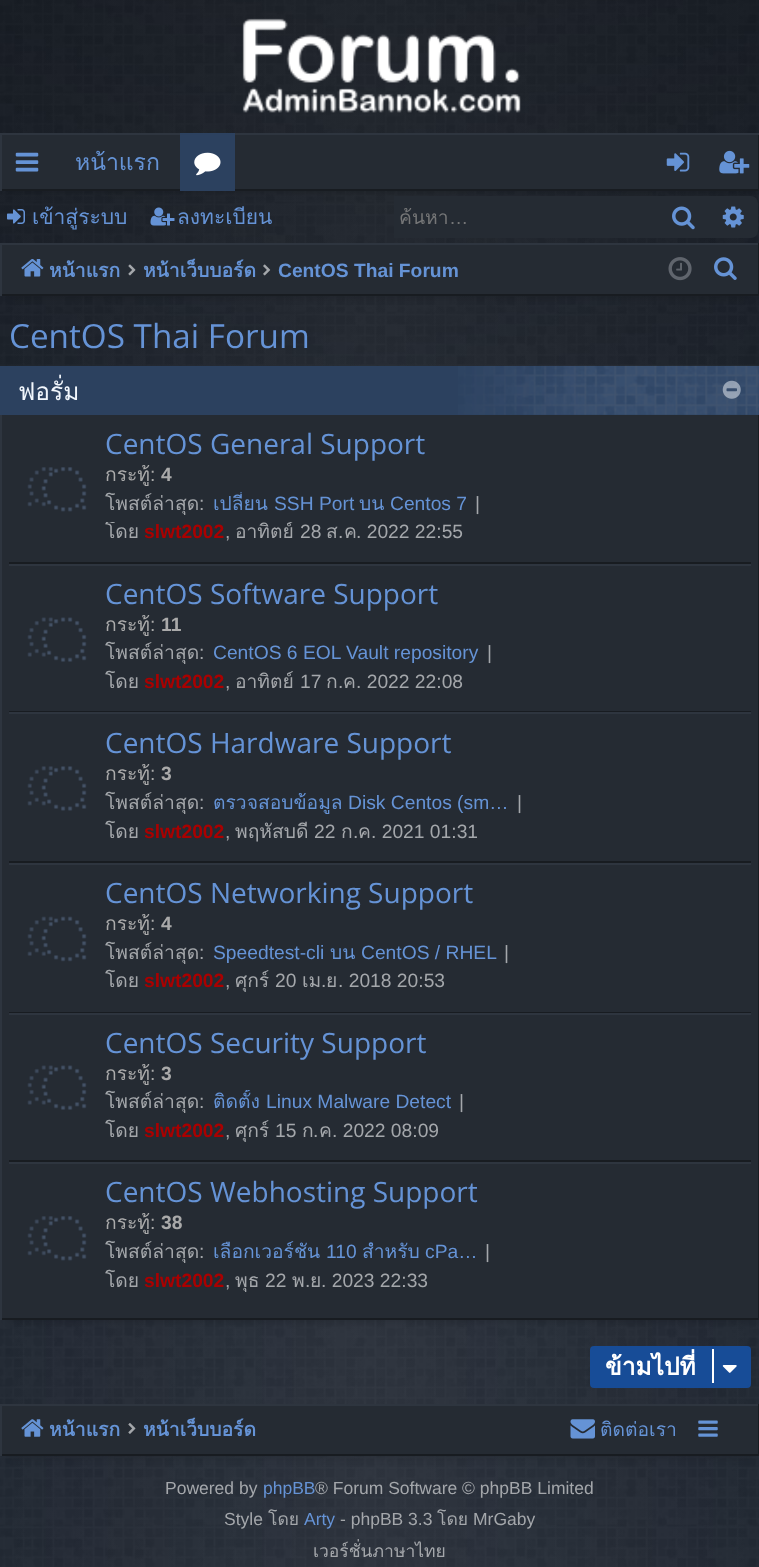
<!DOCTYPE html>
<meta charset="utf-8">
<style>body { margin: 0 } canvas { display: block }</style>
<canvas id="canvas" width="759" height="1567"></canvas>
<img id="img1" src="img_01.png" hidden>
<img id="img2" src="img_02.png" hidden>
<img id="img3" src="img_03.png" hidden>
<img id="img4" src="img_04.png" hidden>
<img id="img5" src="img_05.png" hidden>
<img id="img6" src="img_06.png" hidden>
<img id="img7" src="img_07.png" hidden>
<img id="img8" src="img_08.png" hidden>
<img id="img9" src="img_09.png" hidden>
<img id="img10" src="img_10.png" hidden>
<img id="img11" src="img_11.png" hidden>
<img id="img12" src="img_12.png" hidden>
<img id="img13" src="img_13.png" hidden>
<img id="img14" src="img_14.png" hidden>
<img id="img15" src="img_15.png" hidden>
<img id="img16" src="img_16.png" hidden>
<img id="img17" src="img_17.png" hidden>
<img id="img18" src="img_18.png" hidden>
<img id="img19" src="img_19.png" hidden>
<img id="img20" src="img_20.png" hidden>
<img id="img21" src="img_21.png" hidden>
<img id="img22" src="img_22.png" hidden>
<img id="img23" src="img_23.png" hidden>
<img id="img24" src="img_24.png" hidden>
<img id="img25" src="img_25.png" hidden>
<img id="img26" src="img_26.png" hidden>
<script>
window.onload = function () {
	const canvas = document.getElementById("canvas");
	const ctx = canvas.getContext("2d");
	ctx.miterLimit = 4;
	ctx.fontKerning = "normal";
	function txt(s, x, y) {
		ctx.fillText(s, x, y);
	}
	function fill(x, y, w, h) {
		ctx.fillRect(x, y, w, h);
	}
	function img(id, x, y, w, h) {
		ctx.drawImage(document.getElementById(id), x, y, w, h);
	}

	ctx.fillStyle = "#1C232E";
	fill(0, 0, 759, 1567);
	img("img1", 0, 0, 759, 1567);
	img("img2", 242, 18, 279, 95);
	ctx.fillStyle = "rgba(0, 0, 0, 0.2)";
	ctx.filter = "blur(4.5px)";
	ctx.beginPath();
	ctx.rect(9, 151, 742, 40);
	ctx.fill();
	ctx.filter = "none";
	ctx.fillStyle = "#252B33";
	fill(2, 135, 756, 54);
	ctx.save();
	ctx.beginPath();
	ctx.rect(0, 133, 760, 58);
	ctx.clip();
	ctx.fillStyle = "#181C21";
	ctx.beginPath();
	ctx.moveTo(-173, -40);
	ctx.lineTo(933, -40);
	ctx.lineTo(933, 364);
	ctx.lineTo(-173, 364);
	ctx.closePath();
	ctx.moveTo(-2, 131);
	ctx.lineTo(758, 131);
	ctx.lineTo(758, 189);
	ctx.lineTo(-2, 189);
	ctx.closePath();
	ctx.fill("evenodd");
	ctx.fillStyle = "#2E353F";
	ctx.beginPath();
	ctx.moveTo(-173, -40);
	ctx.lineTo(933, -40);
	ctx.lineTo(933, 364);
	ctx.lineTo(-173, 364);
	ctx.closePath();
	ctx.moveTo(2, 135);
	ctx.lineTo(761, 135);
	ctx.lineTo(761, 192);
	ctx.lineTo(2, 192);
	ctx.closePath();
	ctx.fill("evenodd");
	ctx.restore();
	img("img3", 15, 152, 24, 20);
	ctx.fillStyle = "#2C415F";
	fill(180, 133, 55, 58);
	img("img4", 194, 152, 27, 24);
	img("img5", 666, 152, 24, 20);
	img("img6", 719, 150, 31, 24);
	img("img7", 7, 209, 18, 15);
	img("img8", 150, 207, 25, 19);
	ctx.fillStyle = "#252B33";
	fill(394, 196, 262, 42);
	fill(656, 196, 53, 42);
	img("img9", 672, 206, 23, 24);
	ctx.beginPath();
	ctx.roundRect(709, 196, 49, 42, [0, 7, 7, 0]);
	ctx.fill();
	img("img10", 722, 206, 22, 22);
	ctx.fillStyle = "rgba(0, 0, 0, 0.2)";
	ctx.filter = "blur(4.5px)";
	ctx.beginPath();
	ctx.rect(9, 261, 742, 35);
	ctx.fill();
	ctx.filter = "none";
	ctx.fillStyle = "#252B33";
	fill(2, 245, 756, 49);
	ctx.fillStyle = "#2E353F";
	fill(0, 243, 759, 2);
	ctx.fillStyle = "#181C21";
	fill(758, 243, 1, 53);
	fill(0, 294, 759, 2);
	ctx.fillStyle = "#2E353F";
	fill(0, 243, 2, 53);
	img("img11", 21, 259, 23, 18);
	img("img12", 128, 264, 8, 12);
	img("img13", 263, 264, 8, 12);
	img("img14", 668, 257, 24, 24);
	img("img15", 714, 257, 23, 23);
	ctx.fillStyle = "rgba(0, 0, 0, 0.2)";
	ctx.filter = "blur(4.5px)";
	ctx.beginPath();
	ctx.rect(9, 383, 742, 937);
	ctx.fill();
	ctx.filter = "none";
	ctx.fillStyle = "#252B33";
	fill(2, 415, 756, 903);
	ctx.fillStyle = "#181C21";
	fill(758, 415, 1, 905);
	fill(0, 1318, 759, 2);
	ctx.fillStyle = "#2E353F";
	fill(0, 415, 2, 905);
	ctx.fillStyle = "#2C415F";
	fill(0, 366, 759, 49);
	img("img16", 458, 365, 301, 50);
	img("img17", 722, 380, 19, 19);
	ctx.fillStyle = "#181C21";
	fill(9, 562, 742, 2);
	img("img18", 27, 467, 60, 45);
	ctx.fillStyle = "#2E353F";
	fill(9, 564, 742, 2);
	ctx.fillStyle = "#181C21";
	fill(9, 711, 742, 1);
	img("img19", 27, 617, 60, 45);
	ctx.fillStyle = "#2E353F";
	fill(9, 712, 742, 2);
	ctx.fillStyle = "#181C21";
	fill(9, 861, 742, 2);
	img("img20", 27, 766, 60, 45);
	ctx.fillStyle = "#2E353F";
	fill(9, 863, 742, 2);
	ctx.fillStyle = "#181C21";
	fill(9, 1012, 742, 1);
	img("img21", 27, 916, 60, 46);
	ctx.fillStyle = "#2E353F";
	fill(9, 1013, 742, 2);
	ctx.fillStyle = "#181C21";
	fill(9, 1160, 742, 2);
	img("img19", 27, 1065, 60, 45);
	ctx.fillStyle = "#2E353F";
	fill(9, 1162, 742, 2);
	img("img18", 27, 1216, 60, 45);
	ctx.fillStyle = "#174C97";
	ctx.beginPath();
	ctx.roundRect(591, 1347, 159, 40, 3);
	ctx.fill();
	ctx.strokeStyle = "#174C97";
	ctx.lineWidth = 2;
	ctx.stroke();
	ctx.fillStyle = "#FFFFFF";
	fill(712, 1349, 2, 34);
	img("img22", 722, 1365, 15, 8);
	ctx.fillStyle = "rgba(0, 0, 0, 0.2)";
	ctx.filter = "blur(4.5px)";
	ctx.beginPath();
	ctx.rect(9, 1421, 742, 35);
	ctx.fill();
	ctx.filter = "none";
	ctx.fillStyle = "#252B33";
	fill(2, 1406, 756, 48);
	ctx.fillStyle = "#2E353F";
	fill(0, 1404, 759, 2);
	ctx.fillStyle = "#181C21";
	fill(758, 1404, 1, 52);
	fill(0, 1454, 759, 2);
	ctx.fillStyle = "#2E353F";
	fill(0, 1404, 2, 52);
	img("img23", 21, 1419, 23, 18);
	img("img24", 128, 1423, 8, 11);
	img("img25", 570, 1419, 25, 20);
	img("img26", 698, 1420, 20, 17);
	ctx.font = "23px Loma";
	ctx.fillStyle = "#6593D6";
	txt("หน้าแรก", 75, 170);
	ctx.font = "21px Loma";
	txt("เข้าสู่ระบบ", 32, 224);
	txt("ลงทะเบียน", 177, 224);
	ctx.save();
	ctx.beginPath();
	ctx.rect(399, 201, 245, 32);
	ctx.clip();
	ctx.font = "19.25px Loma";
	ctx.fillStyle = "#757677";
	txt("ค้นหา", 399, 224);
	ctx.restore();
	ctx.font = "19.25px Liberation Sans";
	ctx.fillStyle = "#757677";
	txt("…", 449, 224);
	ctx.font = "bold 19.25px Loma";
	ctx.fillStyle = "#6593D6";
	txt("หน้าแรก", 49, 277);
	txt("หน้าเว็บบอร์ด", 143, 277);
	ctx.font = "bold 19.25px Liberation Sans";
	txt("CentOS Thai Forum", 278, 277);
	ctx.font = "33.25px Open Sans";
	txt("CentOS Thai Forum", 9, 348);
	ctx.font = "24.5px Loma";
	ctx.fillStyle = "#F1F6FC";
	txt("ฟอรั่ม", 18, 400);
	ctx.font = "28px Open Sans";
	ctx.fillStyle = "#6593D6";
	txt("CentOS General Support", 105, 454);
	ctx.font = "19.25px Loma";
	ctx.fillStyle = "#AAAAAA";
	txt("กระทู้", 105, 481);
	ctx.font = "19.25px Liberation Sans";
	txt(":", 150, 481);
	ctx.font = "bold 19.25px Liberation Sans";
	txt("4", 161, 481);
	ctx.font = "19.25px Loma";
	ctx.fillStyle = "#A4A7AB";
	txt("โพสต์ล่าสุด", 105, 510);
	ctx.font = "19.25px Liberation Sans";
	txt(":", 199, 510);
	ctx.save();
	ctx.beginPath();
	ctx.rect(105, 492, 383, 23);
	ctx.clip();
	ctx.font = "19.25px Loma";
	ctx.fillStyle = "#6593D6";
	txt("เปลี่ยน", 213, 510);
	ctx.restore();
	ctx.fillStyle = "#6593D6";
	txt("SSH Port", 274, 510);
	ctx.font = "19.25px Loma";
	txt("บน", 359, 510);
	ctx.font = "19.25px Liberation Sans";
	txt("Centos 7", 390, 510);
	ctx.fillStyle = "#A4A7AB";
	txt("|", 475, 510);
	ctx.save();
	ctx.beginPath();
	ctx.rect(105, 522, 359, 22);
	ctx.clip();
	ctx.font = "19.25px Loma";
	txt("โดย", 105, 538);
	ctx.restore();
	ctx.font = "bold 19.25px Liberation Sans";
	ctx.fillStyle = "#AA0000";
	txt("slwt2002", 144, 538);
	ctx.font = "19.25px Liberation Sans";
	ctx.fillStyle = "#A4A7AB";
	txt(",", 225, 538);
	ctx.save();
	ctx.beginPath();
	ctx.rect(105, 522, 359, 22);
	ctx.clip();
	ctx.font = "19.25px Loma";
	txt("อาทิตย์", 235, 538);
	ctx.restore();
	txt("28", 300, 538);
	ctx.font = "19.25px Loma";
	txt("ส", 326, 538);
	ctx.font = "19.25px Liberation Sans";
	txt(".", 338, 538);
	ctx.font = "19.25px Loma";
	txt("ค", 344, 538);
	ctx.font = "19.25px Liberation Sans";
	txt(". 2022 22:55", 356, 538);
	ctx.font = "28px Open Sans";
	ctx.fillStyle = "#6593D6";
	txt("CentOS Software Support", 105, 604);
	ctx.font = "19.25px Loma";
	ctx.fillStyle = "#AAAAAA";
	txt("กระทู้", 105, 631);
	ctx.font = "19.25px Liberation Sans";
	txt(":", 150, 631);
	ctx.font = "bold 19.25px Liberation Sans";
	txt("11", 161, 631);
	ctx.font = "19.25px Loma";
	ctx.fillStyle = "#A4A7AB";
	txt("โพสต์ล่าสุด", 105, 659);
	ctx.font = "19.25px Liberation Sans";
	txt(":", 199, 659);
	ctx.fillStyle = "#6593D6";
	txt("CentOS 6 EOL Vault repository", 213, 659);
	ctx.fillStyle = "#A4A7AB";
	txt("|", 487, 659);
	ctx.font = "19.25px Loma";
	txt("โดย", 105, 688);
	ctx.font = "bold 19.25px Liberation Sans";
	ctx.fillStyle = "#AA0000";
	txt("slwt2002", 144, 688);
	ctx.font = "19.25px Liberation Sans";
	ctx.fillStyle = "#A4A7AB";
	txt(",", 225, 688);
	ctx.font = "19.25px Loma";
	txt("อาทิตย์", 235, 688);
	ctx.font = "19.25px Liberation Sans";
	txt("17", 300, 688);
	ctx.font = "19.25px Loma";
	txt("ก", 326, 688);
	ctx.font = "19.25px Liberation Sans";
	txt(".", 338, 688);
	ctx.font = "19.25px Loma";
	txt("ค", 343, 688);
	ctx.font = "19.25px Liberation Sans";
	txt(". 2022 22:08", 356, 688);
	ctx.font = "28px Open Sans";
	ctx.fillStyle = "#6593D6";
	txt("CentOS Hardware Support", 105, 753);
	ctx.font = "19.25px Loma";
	ctx.fillStyle = "#AAAAAA";
	txt("กระทู้", 105, 780);
	ctx.font = "19.25px Liberation Sans";
	txt(":", 150, 780);
	ctx.font = "bold 19.25px Liberation Sans";
	txt("3", 161, 780);
	ctx.font = "19.25px Loma";
	ctx.fillStyle = "#A4A7AB";
	txt("โพสต์ล่าสุด", 105, 809);
	ctx.font = "19.25px Liberation Sans";
	txt(":", 199, 809);
	ctx.font = "19.25px Loma";
	ctx.fillStyle = "#6593D6";
	txt("ตรวจสอบข้อมูล", 213, 809);
	ctx.font = "19.25px Liberation Sans";
	txt("Disk Centos (sm…", 348, 809);
	ctx.fillStyle = "#A4A7AB";
	txt("|", 517, 809);
	ctx.font = "19.25px Loma";
	txt("โดย", 105, 838);
	ctx.font = "bold 19.25px Liberation Sans";
	ctx.fillStyle = "#AA0000";
	txt("slwt2002", 144, 838);
	ctx.font = "19.25px Liberation Sans";
	ctx.fillStyle = "#A4A7AB";
	txt(",", 225, 838);
	ctx.font = "19.25px Loma";
	txt("พฤหัสบดี", 235, 838);
	ctx.font = "19.25px Liberation Sans";
	txt("22", 314, 838);
	ctx.font = "19.25px Loma";
	txt("ก", 341, 838);
	ctx.font = "19.25px Liberation Sans";
	txt(".", 353, 838);
	ctx.font = "19.25px Loma";
	txt("ค", 358, 838);
	ctx.font = "19.25px Liberation Sans";
	txt(". 2021 01:31", 371, 838);
	ctx.font = "28px Open Sans";
	ctx.fillStyle = "#6593D6";
	txt("CentOS Networking Support", 105, 903);
	ctx.font = "19.25px Loma";
	ctx.fillStyle = "#AAAAAA";
	txt("กระทู้", 105, 930);
	ctx.font = "19.25px Liberation Sans";
	txt(":", 150, 930);
	ctx.font = "bold 19.25px Liberation Sans";
	txt("4", 161, 930);
	ctx.font = "19.25px Loma";
	ctx.fillStyle = "#A4A7AB";
	txt("โพสต์ล่าสุด", 105, 959);
	ctx.font = "19.25px Liberation Sans";
	txt(":", 199, 959);
	ctx.fillStyle = "#6593D6";
	txt("Speedtest-cli", 213, 959);
	ctx.font = "19.25px Loma";
	txt("บน", 330, 959);
	ctx.font = "19.25px Liberation Sans";
	txt("CentOS / RHEL", 361, 959);
	ctx.fillStyle = "#A4A7AB";
	txt("|", 504, 959);
	ctx.font = "19.25px Loma";
	txt("โดย", 105, 987);
	ctx.font = "bold 19.25px Liberation Sans";
	ctx.fillStyle = "#AA0000";
	txt("slwt2002", 144, 987);
	ctx.font = "19.25px Liberation Sans";
	ctx.fillStyle = "#A4A7AB";
	txt(",", 225, 987);
	ctx.font = "19.25px Loma";
	txt("ศุกร์", 235, 987);
	ctx.font = "19.25px Liberation Sans";
	txt("20", 275, 987);
	ctx.font = "19.25px Loma";
	txt("เม", 302, 987);
	ctx.font = "19.25px Liberation Sans";
	txt(".", 321, 987);
	ctx.font = "19.25px Loma";
	txt("ย", 326, 987);
	ctx.font = "19.25px Liberation Sans";
	txt(". 2018 20:53", 338, 987);
	ctx.font = "28px Open Sans";
	ctx.fillStyle = "#6593D6";
	txt("CentOS Security Support", 105, 1053);
	ctx.font = "19.25px Loma";
	ctx.fillStyle = "#AAAAAA";
	txt("กระทู้", 105, 1080);
	ctx.font = "19.25px Liberation Sans";
	txt(":", 150, 1080);
	ctx.font = "bold 19.25px Liberation Sans";
	txt("3", 161, 1080);
	ctx.font = "19.25px Loma";
	ctx.fillStyle = "#A4A7AB";
	txt("โพสต์ล่าสุด", 105, 1108);
	ctx.font = "19.25px Liberation Sans";
	txt(":", 199, 1108);
	ctx.save();
	ctx.beginPath();
	ctx.rect(105, 1090, 368, 23);
	ctx.clip();
	ctx.font = "19.25px Loma";
	ctx.fillStyle = "#6593D6";
	txt("ติดตั้ง", 213, 1108);
	ctx.restore();
	ctx.fillStyle = "#6593D6";
	txt("Linux Malware Detect", 266, 1108);
	ctx.fillStyle = "#A4A7AB";
	txt("|", 459, 1108);
	ctx.font = "19.25px Loma";
	txt("โดย", 105, 1137);
	ctx.font = "bold 19.25px Liberation Sans";
	ctx.fillStyle = "#AA0000";
	txt("slwt2002", 144, 1137);
	ctx.font = "19.25px Liberation Sans";
	ctx.fillStyle = "#A4A7AB";
	txt(",", 225, 1137);
	ctx.font = "19.25px Loma";
	txt("ศุกร์", 235, 1137);
	ctx.font = "19.25px Liberation Sans";
	txt("15", 275, 1137);
	ctx.font = "19.25px Loma";
	txt("ก", 302, 1137);
	ctx.font = "19.25px Liberation Sans";
	txt(".", 313, 1137);
	ctx.font = "19.25px Loma";
	txt("ค", 319, 1137);
	ctx.font = "19.25px Liberation Sans";
	txt(". 2022 08:09", 332, 1137);
	ctx.font = "28px Open Sans";
	ctx.fillStyle = "#6593D6";
	txt("CentOS Webhosting Support", 105, 1202);
	ctx.font = "19.25px Loma";
	ctx.fillStyle = "#AAAAAA";
	txt("กระทู้", 105, 1229);
	ctx.font = "19.25px Liberation Sans";
	txt(":", 150, 1229);
	ctx.font = "bold 19.25px Liberation Sans";
	txt("38", 161, 1229);
	ctx.font = "19.25px Loma";
	ctx.fillStyle = "#A4A7AB";
	txt("โพสต์ล่าสุด", 105, 1258);
	ctx.font = "19.25px Liberation Sans";
	txt(":", 199, 1258);
	ctx.save();
	ctx.beginPath();
	ctx.rect(105, 1241, 394, 23);
	ctx.clip();
	ctx.font = "19.25px Loma";
	ctx.fillStyle = "#6593D6";
	txt("เลือกเวอร์ชั่น", 213, 1258);
	ctx.restore();
	ctx.fillStyle = "#6593D6";
	txt("110", 326, 1258);
	ctx.font = "19.25px Loma";
	txt("สำหรับ", 362, 1258);
	ctx.font = "19.25px Liberation Sans";
	txt("cPa…", 425, 1258);
	ctx.fillStyle = "#A4A7AB";
	txt("|", 485, 1258);
	ctx.font = "19.25px Loma";
	txt("โดย", 105, 1287);
	ctx.font = "bold 19.25px Liberation Sans";
	ctx.fillStyle = "#AA0000";
	txt("slwt2002", 144, 1287);
	ctx.font = "19.25px Liberation Sans";
	ctx.fillStyle = "#A4A7AB";
	txt(",", 225, 1287);
	ctx.font = "19.25px Loma";
	txt("พุธ", 235, 1287);
	ctx.font = "19.25px Liberation Sans";
	txt("22", 265, 1287);
	ctx.font = "19.25px Loma";
	txt("พ", 292, 1287);
	ctx.font = "19.25px Liberation Sans";
	txt(".", 305, 1287);
	ctx.font = "19.25px Loma";
	txt("ย", 310, 1287);
	ctx.font = "19.25px Liberation Sans";
	txt(". 2023 22:33", 321, 1287);
	ctx.font = "bold 24.5px Loma";
	ctx.fillStyle = "#FFFFFF";
	txt("ข้ามไปที่", 605, 1375);
	ctx.font = "bold 19.25px Loma";
	ctx.fillStyle = "#6593D6";
	txt("หน้าแรก", 49, 1436);
	txt("หน้าเว็บบอร์ด", 143, 1436);
	ctx.font = "19.25px Loma";
	txt("ติดต่อเรา", 600, 1436);
	ctx.font = "17.5px Liberation Sans";
	ctx.fillStyle = "#A4A7AB";
	txt("Powered by", 165, 1494);
	ctx.fillStyle = "#6593D6";
	txt("phpBB", 263, 1494);
	ctx.fillStyle = "#A4A7AB";
	txt("® Forum Software © phpBB Limited", 315, 1494);
	txt("Style", 224, 1525);
	ctx.font = "17.5px Loma";
	txt("โดย", 268, 1525);
	ctx.font = "17.5px Liberation Sans";
	ctx.fillStyle = "#6593D6";
	txt("Arty", 304, 1525);
	ctx.fillStyle = "#A4A7AB";
	txt("- phpBB 3.3", 340, 1525);
	ctx.font = "17.5px Loma";
	txt("โดย", 437, 1525);
	ctx.font = "17.5px Liberation Sans";
	txt("MrGaby", 473, 1525);
	ctx.font = "17.5px Loma";
	txt("เวอร์ชั่นภาษาไทย", 313, 1557);
};
</script>
